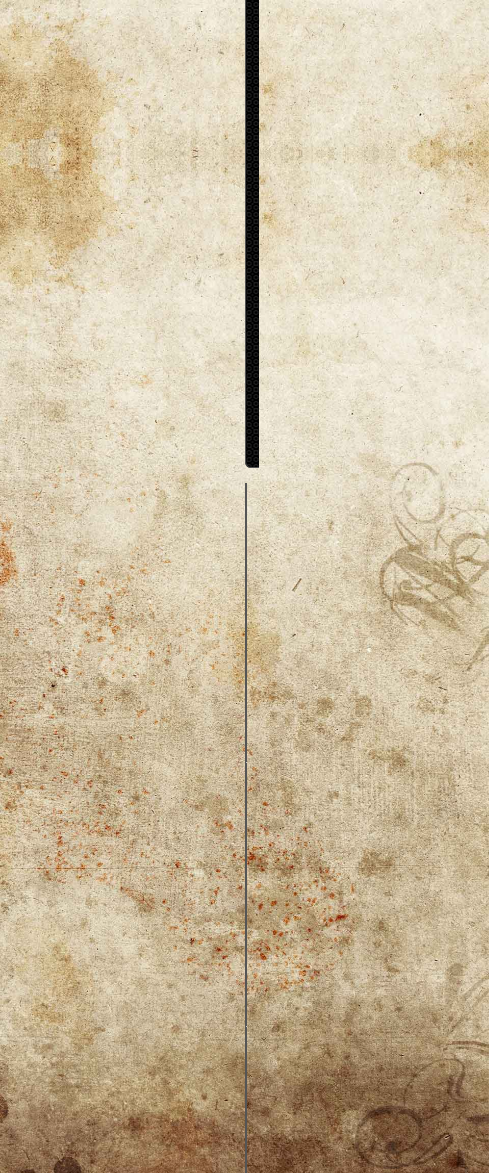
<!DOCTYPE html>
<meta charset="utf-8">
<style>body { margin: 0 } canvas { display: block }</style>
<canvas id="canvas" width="489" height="1173"></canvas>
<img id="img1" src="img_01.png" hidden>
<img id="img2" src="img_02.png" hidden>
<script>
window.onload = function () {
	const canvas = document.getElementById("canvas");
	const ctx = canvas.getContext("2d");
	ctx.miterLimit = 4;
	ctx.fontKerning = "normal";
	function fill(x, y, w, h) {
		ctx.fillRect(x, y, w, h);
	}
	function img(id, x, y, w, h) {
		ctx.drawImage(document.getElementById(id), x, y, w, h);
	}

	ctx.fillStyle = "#FFFFFF";
	fill(0, 0, 489, 1173);
	img("img1", 0, 0, 489, 1173);
	img("img2", 245, 0, 14, 468);
	ctx.save();
	ctx.beginPath();
	ctx.rect(245, 0, 14, 468);
	ctx.clip();
	ctx.beginPath();
	ctx.roundRect(245.5, -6.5, 21, 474, 5.5);
	ctx.strokeStyle = "#555555";
	ctx.stroke();
	ctx.restore();
	ctx.fillStyle = "#555555";
	fill(246, 483, 1, 690);
	ctx.fillStyle = "#CCCCCC";
	fill(245, 762, 2, 1);
	ctx.fillStyle = "#555555";
	fill(245, 483, 1, 280);
	ctx.fillStyle = "#CCCCCC";
	fill(245, 1026, 2, 1);
	ctx.fillStyle = "#555555";
	fill(245, 763, 1, 410);
};
</script>
